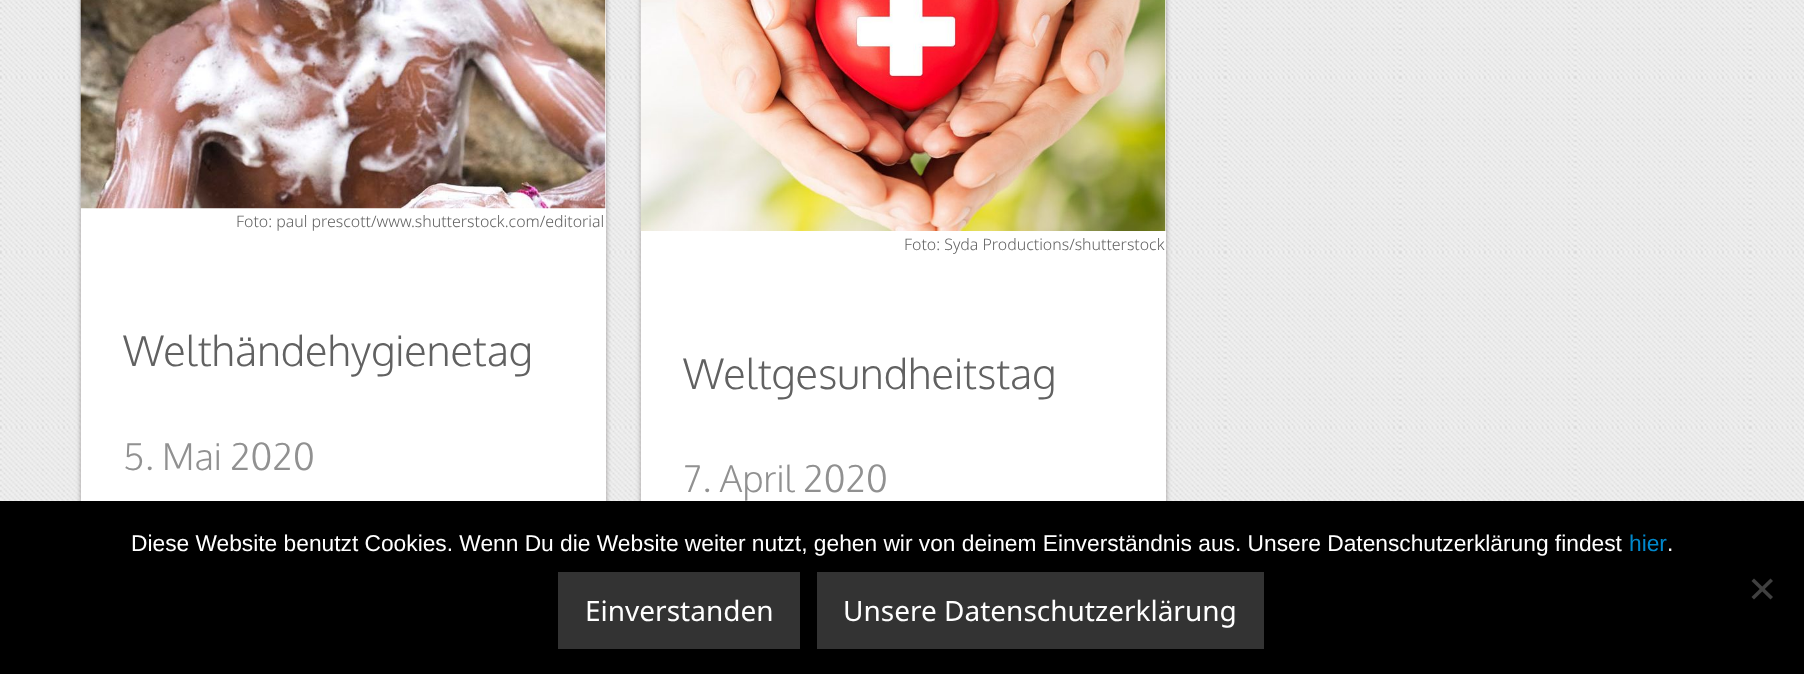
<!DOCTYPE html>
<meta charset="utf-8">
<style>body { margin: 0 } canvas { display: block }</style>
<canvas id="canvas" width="1804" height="674"></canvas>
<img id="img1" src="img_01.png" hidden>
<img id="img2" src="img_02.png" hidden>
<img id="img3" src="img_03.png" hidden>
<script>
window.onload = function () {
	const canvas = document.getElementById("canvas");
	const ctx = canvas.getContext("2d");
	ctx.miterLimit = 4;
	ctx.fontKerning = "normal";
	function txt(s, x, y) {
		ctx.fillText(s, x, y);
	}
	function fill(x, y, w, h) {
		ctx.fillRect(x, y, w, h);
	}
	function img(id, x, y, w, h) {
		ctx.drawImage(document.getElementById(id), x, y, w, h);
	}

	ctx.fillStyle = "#FFFFFF";
	fill(0, 0, 1804, 674);
	img("img1", 0, 0, 1804, 501);
	ctx.fillStyle = "rgba(34, 25, 25, 0.4)";
	ctx.filter = "blur(2.5px)";
	ctx.beginPath();
	ctx.rect(81, -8, 525, 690);
	ctx.fill();
	ctx.filter = "none";
	ctx.fillStyle = "#FFFFFF";
	fill(81, 0, 525, 501);
	img("img2", 80, 0, 526, 209);
	ctx.fillStyle = "rgba(34, 25, 25, 0.4)";
	ctx.filter = "blur(2.5px)";
	ctx.beginPath();
	ctx.rect(641, -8, 525, 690);
	ctx.fill();
	ctx.filter = "none";
	ctx.fillStyle = "#FFFFFF";
	fill(641, 0, 525, 501);
	img("img3", 640, 0, 526, 231);
	ctx.fillStyle = "#000000";
	fill(0, 501, 1804, 173);
	ctx.fillStyle = "#404040";
	ctx.beginPath();
	ctx.moveTo(1770.5, 578.5);
	ctx.lineTo(1773, 581);
	ctx.lineTo(1754, 599.5);
	ctx.lineTo(1751.5, 597);
	ctx.closePath();
	ctx.fill();
	ctx.beginPath();
	ctx.moveTo(1751.5, 581);
	ctx.lineTo(1754, 578.5);
	ctx.lineTo(1773, 597);
	ctx.lineTo(1770.5, 599.5);
	ctx.closePath();
	ctx.fill();
	ctx.fillStyle = "#333333";
	fill(558, 572, 242, 77);
	fill(817, 572, 447, 77);
	ctx.font = "300 15.9px Noto Sans";
	ctx.fillStyle = "#616161";
	txt("Foto: paul prescott/www.shutterstock.com/editorial", 236, 227);
	ctx.font = "300 42px Oxygen";
	txt("Welthändehygienetag", 123, 366);
	ctx.font = "300 36.75px Oxygen";
	ctx.fillStyle = "#919191";
	txt("5. Mai 2020", 123, 470);
	ctx.font = "300 15.9px Noto Sans";
	ctx.fillStyle = "#616161";
	txt("Foto: Syda Productions/shutterstock", 904, 250);
	ctx.font = "300 42px Oxygen";
	txt("Weltgesundheitstag", 683, 389);
	ctx.font = "300 36.75px Oxygen";
	ctx.fillStyle = "#919191";
	txt("7. April 2020", 683, 492);
	ctx.font = "22.75px Liberation Sans";
	ctx.fillStyle = "#FFFFFF";
	txt("Diese Website benutzt Cookies. Wenn Du die Website weiter nutzt, gehen wir von deinem Einverständnis aus. Unsere Datenschutzerklärung findest", 131, 551);
	ctx.fillStyle = "#0088CC";
	txt("hier", 1629, 551);
	ctx.fillStyle = "#FFFFFF";
	txt(".", 1667, 551);
	ctx.font = "28px Noto Sans";
	txt("Einverstanden", 585, 621);
	txt("Unsere Datenschutzerklärung", 843, 621);
};
</script>
